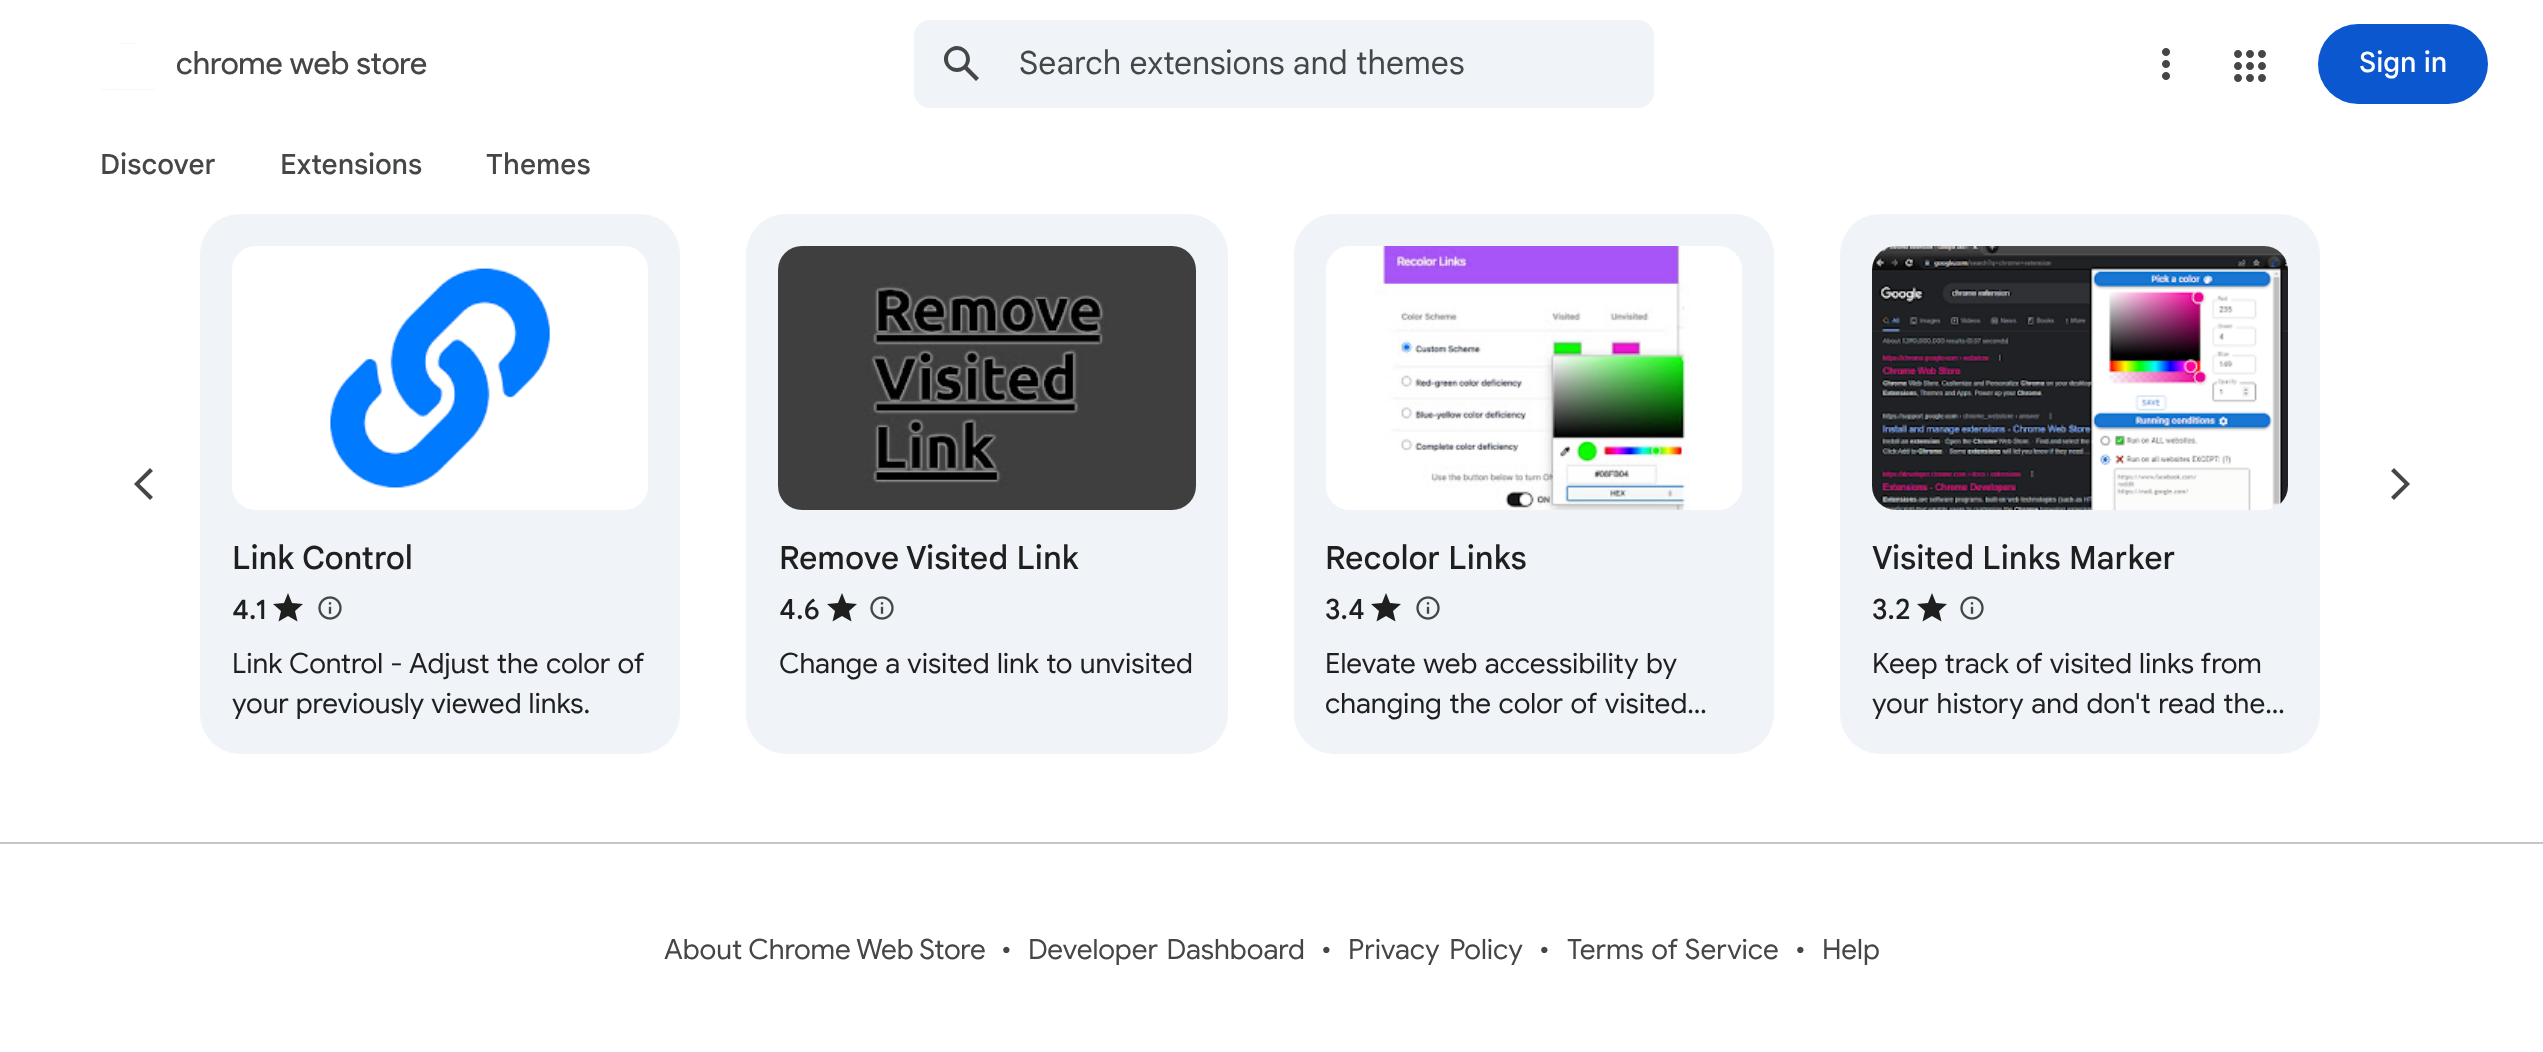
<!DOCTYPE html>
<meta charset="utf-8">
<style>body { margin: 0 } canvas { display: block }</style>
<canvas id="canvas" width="2543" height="1052"></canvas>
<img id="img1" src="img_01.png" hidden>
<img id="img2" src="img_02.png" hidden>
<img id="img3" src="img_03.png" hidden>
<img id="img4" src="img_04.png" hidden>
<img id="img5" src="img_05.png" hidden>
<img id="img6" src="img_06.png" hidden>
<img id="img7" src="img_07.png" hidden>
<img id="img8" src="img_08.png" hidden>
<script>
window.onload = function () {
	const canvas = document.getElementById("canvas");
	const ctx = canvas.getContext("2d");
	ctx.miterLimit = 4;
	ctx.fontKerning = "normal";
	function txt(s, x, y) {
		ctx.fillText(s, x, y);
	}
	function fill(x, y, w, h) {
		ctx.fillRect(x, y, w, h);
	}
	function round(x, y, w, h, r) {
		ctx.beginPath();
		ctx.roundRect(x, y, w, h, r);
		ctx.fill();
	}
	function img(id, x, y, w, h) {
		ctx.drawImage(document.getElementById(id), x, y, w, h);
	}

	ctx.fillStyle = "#FFFFFF";
	fill(0, 0, 2543, 1052);
	img("img1", 99, 43, 58, 47);
	ctx.fillStyle = "#F0F4F9";
	round(914, 20, 740, 88, 16);
	ctx.fillStyle = "#444746";
	ctx.beginPath();
	ctx.moveTo(979, 78);
	ctx.lineTo(967.5, 66.5);
	ctx.bezierCurveTo(976.5, 54, 959, 38.5, 948, 50);
	ctx.bezierCurveTo(936.5, 61, 952, 78.5, 964.5, 69.5);
	ctx.lineTo(976, 81);
	ctx.closePath();
	ctx.moveTo(948, 59);
	ctx.bezierCurveTo(948, 47, 966, 47, 966, 59);
	ctx.bezierCurveTo(966, 71, 948, 71, 948, 59);
	ctx.closePath();
	ctx.fill();
	img("img2", 2162, 48, 8, 32);
	img("img3", 2234, 50, 32, 32);
	ctx.fillStyle = "#0B57D0";
	round(2318, 24, 170, 80, 40);
	ctx.fillStyle = "#444746";
	ctx.beginPath();
	ctx.moveTo(153, 471);
	ctx.lineTo(150, 468);
	ctx.lineTo(134, 484);
	ctx.lineTo(150, 500);
	ctx.lineTo(153, 497);
	ctx.lineTo(139.5, 484);
	ctx.fill();
	ctx.beginPath();
	ctx.moveTo(2391, 497);
	ctx.lineTo(2394, 500);
	ctx.lineTo(2410, 484);
	ctx.lineTo(2394, 468);
	ctx.lineTo(2391, 471);
	ctx.lineTo(2404.5, 484);
	ctx.fill();
	ctx.fillStyle = "#F0F4F9";
	round(200, 214, 480, 540, 40);
	img("img4", 232, 246, 416, 264);
	ctx.fillStyle = "#1F1F1F";
	ctx.beginPath();
	ctx.moveTo(288, 616);
	ctx.lineTo(297.5, 621.5);
	ctx.lineTo(295, 611);
	ctx.lineTo(303, 604);
	ctx.lineTo(292, 603);
	ctx.lineTo(288, 593);
	ctx.lineTo(284, 603);
	ctx.lineTo(273, 604);
	ctx.lineTo(281, 611);
	ctx.lineTo(278.5, 621.5);
	ctx.closePath();
	ctx.fill();
	img("img5", 318, 596, 24, 24);
	ctx.fillStyle = "#F0F4F9";
	round(746, 214, 482, 540, 40);
	img("img6", 778, 246, 418, 264);
	ctx.fillStyle = "#1F1F1F";
	ctx.beginPath();
	ctx.moveTo(842, 616);
	ctx.lineTo(851.5, 621.5);
	ctx.lineTo(849, 611);
	ctx.lineTo(857, 604);
	ctx.lineTo(846, 603);
	ctx.lineTo(842, 593);
	ctx.lineTo(838, 603);
	ctx.lineTo(827, 604);
	ctx.lineTo(835, 611);
	ctx.lineTo(832.5, 621.5);
	ctx.closePath();
	ctx.fill();
	img("img5", 870, 596, 24, 24);
	ctx.fillStyle = "#F0F4F9";
	round(1294, 214, 480, 540, 40);
	img("img7", 1326, 246, 416, 264);
	ctx.fillStyle = "#1F1F1F";
	ctx.beginPath();
	ctx.moveTo(1386, 616);
	ctx.lineTo(1395.5, 621.5);
	ctx.lineTo(1393, 611);
	ctx.lineTo(1401, 604);
	ctx.lineTo(1390, 603);
	ctx.lineTo(1386, 593);
	ctx.lineTo(1382, 603);
	ctx.lineTo(1371, 604);
	ctx.lineTo(1379, 611);
	ctx.lineTo(1376.5, 621.5);
	ctx.closePath();
	ctx.fill();
	img("img5", 1416, 596, 24, 24);
	ctx.fillStyle = "#F0F4F9";
	round(1840, 214, 480, 540, 40);
	img("img8", 1872, 246, 416, 264);
	ctx.fillStyle = "#1F1F1F";
	ctx.beginPath();
	ctx.moveTo(1932, 616);
	ctx.lineTo(1941.5, 621.5);
	ctx.lineTo(1939, 611);
	ctx.lineTo(1947, 604);
	ctx.lineTo(1936, 603);
	ctx.lineTo(1932, 593);
	ctx.lineTo(1928, 603);
	ctx.lineTo(1917, 604);
	ctx.lineTo(1925, 611);
	ctx.lineTo(1922.5, 621.5);
	ctx.closePath();
	ctx.fill();
	img("img5", 1960, 596, 24, 24);
	ctx.fillStyle = "#C4C7C5";
	fill(0, 842, 2543, 2);
	ctx.font = "32px Product Sans";
	ctx.fillStyle = "#444746";
	txt("chrome web store", 176, 74);
	ctx.font = "32px 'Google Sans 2'";
	txt("Search extensions and themes", 1019, 74);
	ctx.font = "500 28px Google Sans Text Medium";
	ctx.fillStyle = "#FFFFFF";
	txt("Sign in", 2359, 72);
	ctx.fillStyle = "#444746";
	txt("Discover", 100, 174);
	txt("Extensions", 280, 174);
	txt("Themes", 486, 174);
	ctx.font = "500 32px 'Google Sans 2'";
	ctx.fillStyle = "#1F1F1F";
	txt("Link Control", 232, 569);
	ctx.font = "500 28px Google Sans";
	txt("4.1", 232, 619);
	ctx.wordSpacing = "0.75px";
	ctx.font = "28px Google Sans";
	txt("Link Control - Adjust the color of", 232, 673);
	ctx.wordSpacing = "0.5px";
	txt("your previously viewed links.", 232, 713);
	ctx.wordSpacing = "0px";
	ctx.font = "500 32px 'Google Sans 2'";
	txt("Remove Visited Link", 779, 569);
	ctx.font = "500 28px 'Google Sans 2'";
	txt("4.6", 779, 619);
	ctx.wordSpacing = "0.75px";
	ctx.font = "28px Google Sans";
	txt("Change a visited link to unvisited", 779, 673);
	ctx.wordSpacing = "0px";
	ctx.font = "500 32px 'Google Sans 2'";
	txt("Recolor Links", 1325, 569);
	ctx.font = "500 28px 'Google Sans 2'";
	txt("3.4", 1325, 619);
	ctx.wordSpacing = "1px";
	ctx.font = "28px Google Sans";
	txt("Elevate web accessibility by", 1325, 673);
	txt("changing the color of visited…", 1325, 713);
	ctx.wordSpacing = "0px";
	ctx.font = "500 32px 'Google Sans 2'";
	txt("Visited Links Marker", 1872, 569);
	ctx.font = "500 28px 'Google Sans 2'";
	txt("3.2", 1872, 619);
	ctx.wordSpacing = "0.5px";
	ctx.font = "28px Google Sans";
	txt("Keep track of visited links from", 1872, 673);
	ctx.wordSpacing = "1.25px";
	txt("your history and don't read the…", 1872, 713);
	ctx.wordSpacing = "0px";
	ctx.fillStyle = "#444746";
	txt("About Chrome Web Store", 664, 959);
	txt("•", 1001, 959);
	ctx.wordSpacing = "2px";
	txt("Developer Dashboard", 1028, 959);
	ctx.wordSpacing = "0px";
	txt("•", 1321, 959);
	ctx.wordSpacing = "3px";
	txt("Privacy Policy", 1348, 959);
	ctx.wordSpacing = "0px";
	txt("•", 1539, 959);
	ctx.wordSpacing = "1px";
	txt("Terms of Service", 1567, 959);
	ctx.wordSpacing = "0px";
	txt("•", 1795, 959);
	txt("Help", 1822, 959);
};
</script>
